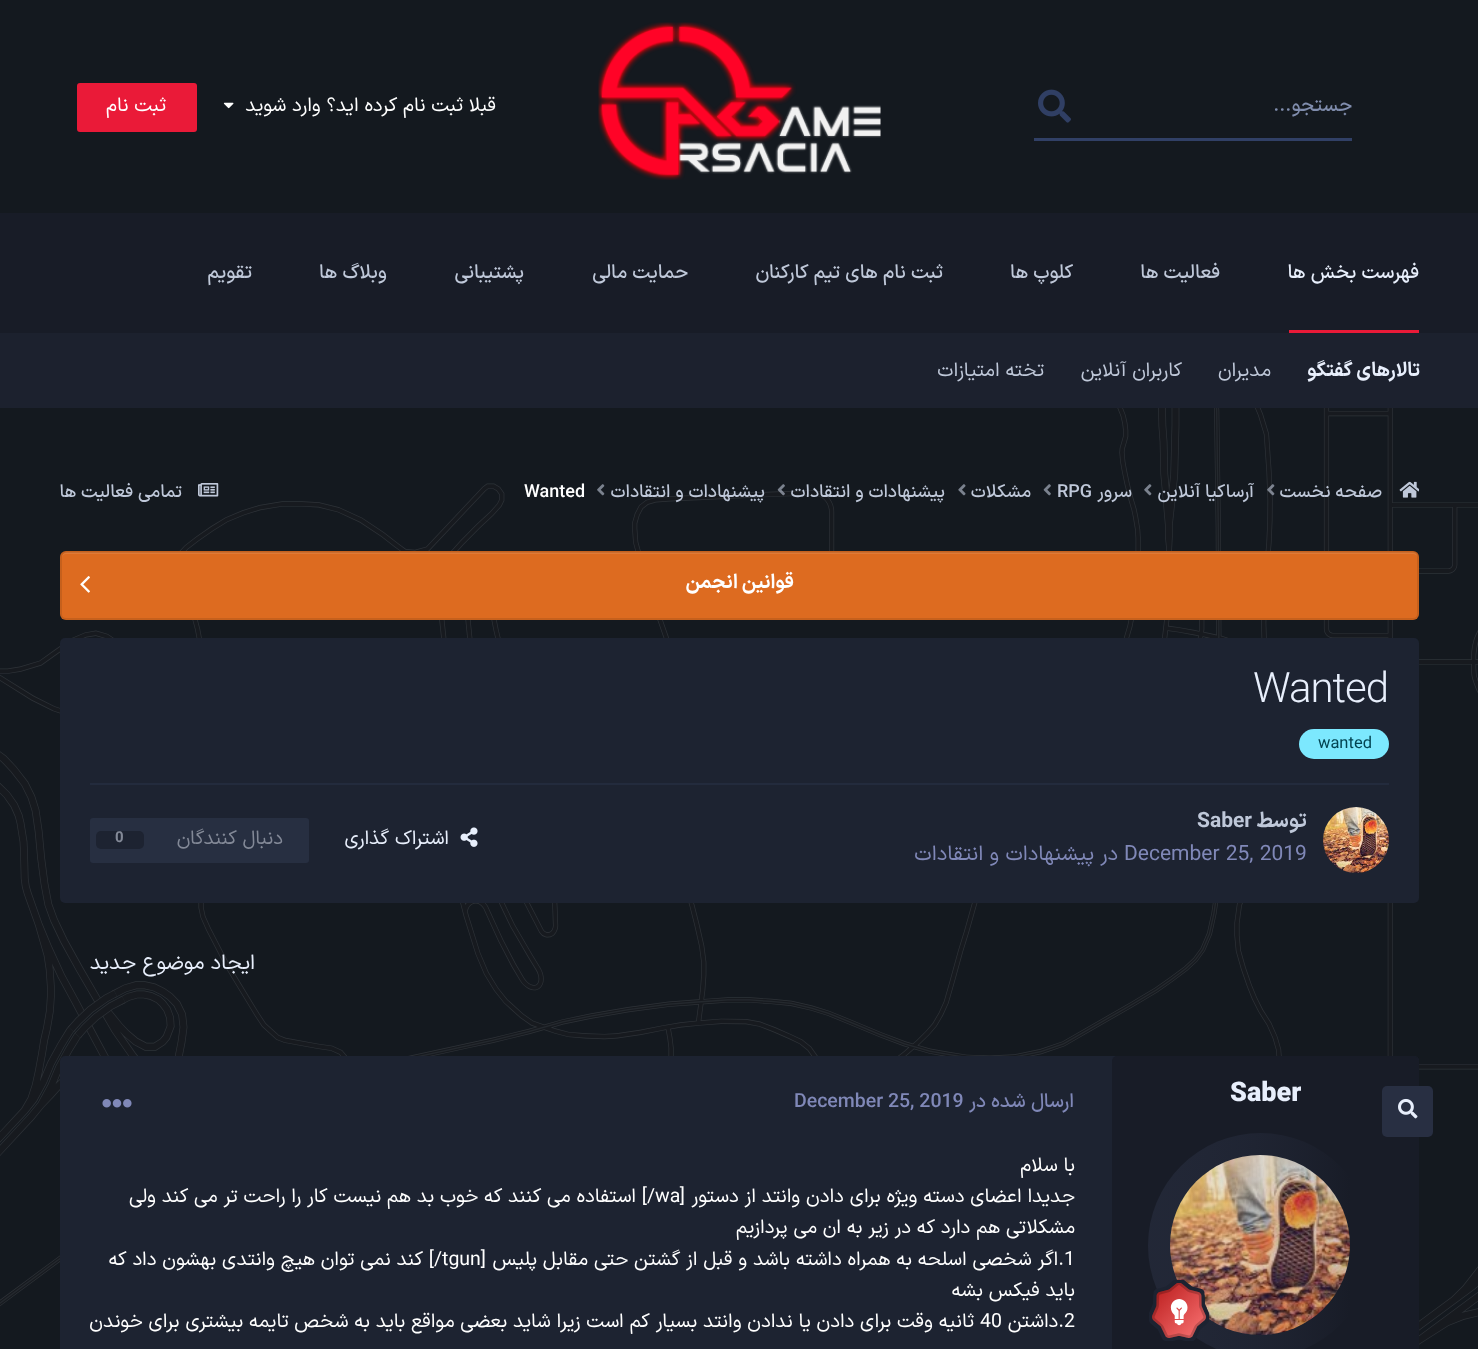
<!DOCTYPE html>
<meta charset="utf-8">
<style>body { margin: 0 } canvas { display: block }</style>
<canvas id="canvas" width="1478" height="1349"></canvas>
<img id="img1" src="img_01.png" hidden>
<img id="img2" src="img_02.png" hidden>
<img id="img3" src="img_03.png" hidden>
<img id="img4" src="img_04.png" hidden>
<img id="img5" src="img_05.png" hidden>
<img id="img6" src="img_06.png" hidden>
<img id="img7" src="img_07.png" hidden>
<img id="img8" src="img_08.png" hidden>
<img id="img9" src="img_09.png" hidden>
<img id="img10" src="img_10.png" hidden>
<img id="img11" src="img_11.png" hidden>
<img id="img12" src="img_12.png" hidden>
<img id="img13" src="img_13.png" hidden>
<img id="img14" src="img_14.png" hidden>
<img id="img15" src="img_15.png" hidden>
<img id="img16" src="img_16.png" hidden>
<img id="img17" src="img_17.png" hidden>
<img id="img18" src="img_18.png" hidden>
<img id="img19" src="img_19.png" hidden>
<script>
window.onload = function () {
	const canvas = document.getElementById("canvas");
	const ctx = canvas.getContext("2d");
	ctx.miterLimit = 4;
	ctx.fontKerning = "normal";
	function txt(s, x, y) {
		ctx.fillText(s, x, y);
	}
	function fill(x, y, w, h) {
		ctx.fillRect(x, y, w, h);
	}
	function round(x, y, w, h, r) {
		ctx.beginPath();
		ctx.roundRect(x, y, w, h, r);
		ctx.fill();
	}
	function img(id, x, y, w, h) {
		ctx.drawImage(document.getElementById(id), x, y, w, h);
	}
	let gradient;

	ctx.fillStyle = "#14191F";
	fill(0, 0, 1478, 1349);
	img("img1", 1038, 89, 33, 34);
	ctx.fillStyle = "#314066";
	fill(1034, 138, 318, 3);
	img("img2", 598, 22, 283, 158);
	img("img3", 223, 102, 11, 7);
	ctx.fillStyle = "#EA1A38";
	round(77, 83, 120, 49, 3);
	ctx.fillStyle = "#181C27";
	fill(0, 213, 1478, 120);
	ctx.fillStyle = "#EA1A38";
	fill(1289, 330, 130, 3);
	ctx.fillStyle = "#1C212E";
	fill(0, 333, 1478, 75);
	img("img4", 0, 408, 1478, 937);
	img("img5", 1399, 481, 20, 17);
	img("img6", 1267, 484, 8, 12);
	img("img7", 1144, 484, 8, 12);
	img("img8", 1043, 484, 8, 12);
	img("img9", 958, 484, 8, 12);
	img("img10", 777, 484, 8, 12);
	img("img11", 597, 484, 8, 12);
	img("img12", 198, 483, 21, 14);
	ctx.fillStyle = "#DD6B20";
	round(60, 551, 1359, 69, 6);
	ctx.fillStyle = "#E07A36";
	ctx.beginPath();
	ctx.moveTo(66, 554);
	ctx.lineTo(1413, 554);
	ctx.bezierCurveTo(1415, 554, 1418, 556, 1418, 558);
	ctx.bezierCurveTo(1418, 555, 1416, 552, 1413, 552);
	ctx.lineTo(67, 552);
	ctx.bezierCurveTo(64, 552, 62, 555, 62, 558);
	ctx.bezierCurveTo(62, 556, 64, 554, 66, 554);
	ctx.closePath();
	ctx.fill();
	ctx.beginPath();
	ctx.roundRect(61, 552, 1357, 67, 5);
	ctx.strokeStyle = "rgba(0, 0, 0, 0.1)";
	ctx.lineWidth = 2;
	ctx.stroke();
	img("img13", 80, 576, 10, 17);
	ctx.fillStyle = "#1D2331";
	round(60, 638, 1359, 265, 5);
	ctx.fillStyle = "#7CE8FE";
	round(1299, 729, 90, 30, 15);
	ctx.fillStyle = "#232B3D";
	fill(90, 783, 1299, 2);
	ctx.fillStyle = "#141A28";
	ctx.beginPath();
	ctx.arc(1356, 840, 33, 0, Math.PI * 2);
	ctx.fill();
	img("img14", 1323, 807, 66, 66);
	img("img15", 460, 827, 18, 20);
	ctx.fillStyle = "#272F41";
	round(90, 818, 219, 45, 3);
	ctx.fillStyle = "#1D2331";
	round(96, 831, 48, 18, 5);
	round(60, 1056, 1359, 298, 5);
	ctx.fillStyle = "#181C27";
	round(1112, 1056, 307, 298, 5);
	ctx.fillStyle = "#282F42";
	round(1382, 1086, 51, 51, 5);
	img("img16", 1398, 1098, 20, 21);
	ctx.fillStyle = "#141A28";
	ctx.beginPath();
	ctx.arc(1260, 1245, 90, 0, Math.PI * 2);
	ctx.fill();
	img("img17", 1170, 1155, 180, 180);
	gradient = ctx.createLinearGradient(1148, 1245, 1373, 1245);
	gradient.addColorStop(0, "rgba(121, 137, 191, 0.1)");
	gradient.addColorStop(0.9, "rgba(24, 28, 39, 0.2)");
	gradient.addColorStop(1, "rgba(24, 28, 39, 0.5)");
	ctx.fillStyle = gradient;
	ctx.beginPath();
	ctx.arc(1260.5, 1245.5, 112.5, 0, Math.PI * 2);
	ctx.fill();
	img("img18", 1149, 1280, 60, 61);
	img("img19", 102, 1099, 30, 9);
	ctx.direction = "rtl";
	ctx.font = "500 19.5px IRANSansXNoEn";
	ctx.fillStyle = "#808DAD";
	txt("جستجو...", 1352, 111);
	ctx.font = "19.5px IRANSansXNoEn";
	ctx.fillStyle = "#FFFFFF";
	txt("قبلا ثبت نام کرده اید؟ وارد شوید", 496, 111);
	txt("ثبت نام", 166, 111);
	ctx.font = "500 19.5px IRANSansXNoEn";
	ctx.fillStyle = "#E8EFFC";
	txt("فهرست بخش ها", 1419, 278);
	ctx.font = "bold 19.5px IRANSansXNoEn";
	txt("تالارهای گفتگو", 1420, 376);
	ctx.font = "19.5px IRANSansXNoEn";
	ctx.fillStyle = "#BFC8D9";
	txt("مدیران", 1271, 376);
	txt("کاربران آنلاین", 1182, 376);
	txt("تخته امتیازات", 1044, 376);
	ctx.font = "500 19.5px IRANSansXNoEn";
	txt("وبلاگ ها", 387, 278);
	txt("فعالیت ها", 1220, 278);
	txt("کلوپ ها", 1073, 278);
	txt("ثبت نام های تیم کارکنان", 943, 278);
	txt("حمایت مالی", 688, 278);
	txt("پشتیبانی", 524, 278);
	txt("تقویم", 252, 278);
	ctx.font = "500 18px IRANSansXNoEn";
	txt("صفحه نخست", 1382, 497);
	txt("آرساکیا آنلاین", 1254, 497);
	txt("سرور", 1132, 497);
	ctx.direction = "ltr";
	ctx.font = "500 18px Roboto";
	txt("RPG", 1057, 497);
	ctx.direction = "rtl";
	ctx.font = "500 18px IRANSansXNoEn";
	txt("مشکلات", 1031, 497);
	txt("پیشنهادات و انتقادات", 945, 497);
	txt("پیشنهادات و انتقادات", 765, 497);
	ctx.direction = "ltr";
	ctx.font = "500 18px Roboto";
	ctx.fillStyle = "#FFFFFF";
	txt("Wanted", 524, 497);
	ctx.direction = "rtl";
	ctx.font = "500 18px IRANSansXNoEn";
	ctx.fillStyle = "#BFC8D9";
	txt("تمامی فعالیت ها", 182, 497);
	ctx.font = "bold 19.5px IRANSansXNoEn";
	ctx.fillStyle = "#FFFFFF";
	txt("قوانین انجمن", 794, 588);
	ctx.letterSpacing = "-1px";
	ctx.direction = "ltr";
	ctx.font = "300 42px Roboto";
	ctx.fillStyle = "#E8EFFC";
	txt("Wanted", 1253, 702);
	ctx.letterSpacing = "0px";
	ctx.font = "16.5px Roboto";
	ctx.fillStyle = "#034452";
	txt("wanted", 1318, 748);
	ctx.direction = "rtl";
	ctx.font = "bold 21px IRANSansXNoEn";
	ctx.fillStyle = "#BFC8D9";
	txt("توسط", 1307, 827);
	ctx.direction = "ltr";
	ctx.font = "bold 21px Roboto";
	txt("Saber", 1197, 827);
	ctx.wordSpacing = "1px";
	ctx.font = "21px Roboto";
	ctx.fillStyle = "#8088B8";
	txt("December 25, 2019", 1124, 860);
	ctx.wordSpacing = "0px";
	ctx.direction = "rtl";
	ctx.font = "21px IRANSansXNoEn";
	txt("در", 1118, 860);
	txt("پیشنهادات و انتقادات", 1094, 860);
	ctx.font = "19.5px IRANSansXNoEn";
	ctx.fillStyle = "#E8EFFC";
	txt("اشتراک گذاری", 449, 844);
	ctx.fillStyle = "#838997";
	txt("دنبال کنندگان", 283, 844);
	ctx.direction = "ltr";
	ctx.font = "bold 15px Roboto";
	txt("0", 115, 842);
	ctx.direction = "rtl";
	ctx.font = "21px IRANSansXNoEn";
	ctx.fillStyle = "#E8EFFC";
	txt("ایجاد موضوع جدید", 255, 969);
	ctx.save();
	ctx.beginPath();
	ctx.rect(1230, 1079, 71, 31);
	ctx.clip();
	ctx.direction = "ltr";
	ctx.font = "900 27px Roboto";
	txt("Saber", 1230, 1101);
	ctx.restore();
	ctx.font = "500 19.5px IRANSansXNoEn";
	ctx.fillStyle = "#8088B8";
	txt("ارسال شده در", 1074, 1107);
	ctx.direction = "ltr";
	ctx.font = "500 19.5px Roboto";
	txt("December 25, 2019", 794, 1107);
	ctx.direction = "rtl";
	ctx.font = "19.5px IRANSansXNoEn";
	ctx.fillStyle = "#FFFFFF";
	txt("با سلام", 1075, 1171);
	txt("جدیدا اعضای دسته ویژه برای دادن وانتد از دستور", 1075, 1202);
	ctx.font = "19.5px Roboto";
	txt("[", 685, 1202);
	ctx.direction = "ltr";
	txt("wa", 655, 1202);
	ctx.direction = "rtl";
	txt("/]", 655, 1202);
	ctx.font = "19.5px IRANSansXNoEn";
	txt("استفاده می کنند که خوب بد هم نیست کار را راحت تر می کند ولی", 636, 1202);
	txt("مشکلاتی هم دارد که در زیر به ان می پردازیم", 1075, 1233);
	ctx.direction = "ltr";
	ctx.font = "19.5px Roboto";
	txt("1", 1064, 1265);
	ctx.direction = "rtl";
	ctx.font = "19.5px IRANSansXNoEn";
	txt(".اگر شخصی اسلحه به همراه داشته باشد و قبل از گشتن حتی مقابل پلیس", 1064, 1265);
	ctx.font = "19.5px Roboto";
	txt("[", 486, 1265);
	ctx.direction = "ltr";
	txt("tgun", 442, 1265);
	ctx.direction = "rtl";
	txt("/]", 442, 1265);
	ctx.font = "19.5px IRANSansXNoEn";
	txt("کند نمی توان هیچ وانتدی بهشون داد که", 423, 1265);
	txt("باید فیکس بشه", 1075, 1296);
	ctx.direction = "ltr";
	ctx.font = "19.5px Roboto";
	txt("2", 1064, 1327);
	ctx.direction = "rtl";
	ctx.font = "19.5px IRANSansXNoEn";
	txt(".داشتن", 1064, 1327);
	ctx.direction = "ltr";
	ctx.font = "19.5px Roboto";
	txt("40", 980, 1327);
	ctx.direction = "rtl";
	ctx.font = "19.5px IRANSansXNoEn";
	txt("ثانیه وقت برای دادن یا ندادن وانتد بسیار کم است زیرا شاید بعضی مواقع باید به شخص تایمه بیشتری برای خوندن", 974, 1327);
};
</script>
